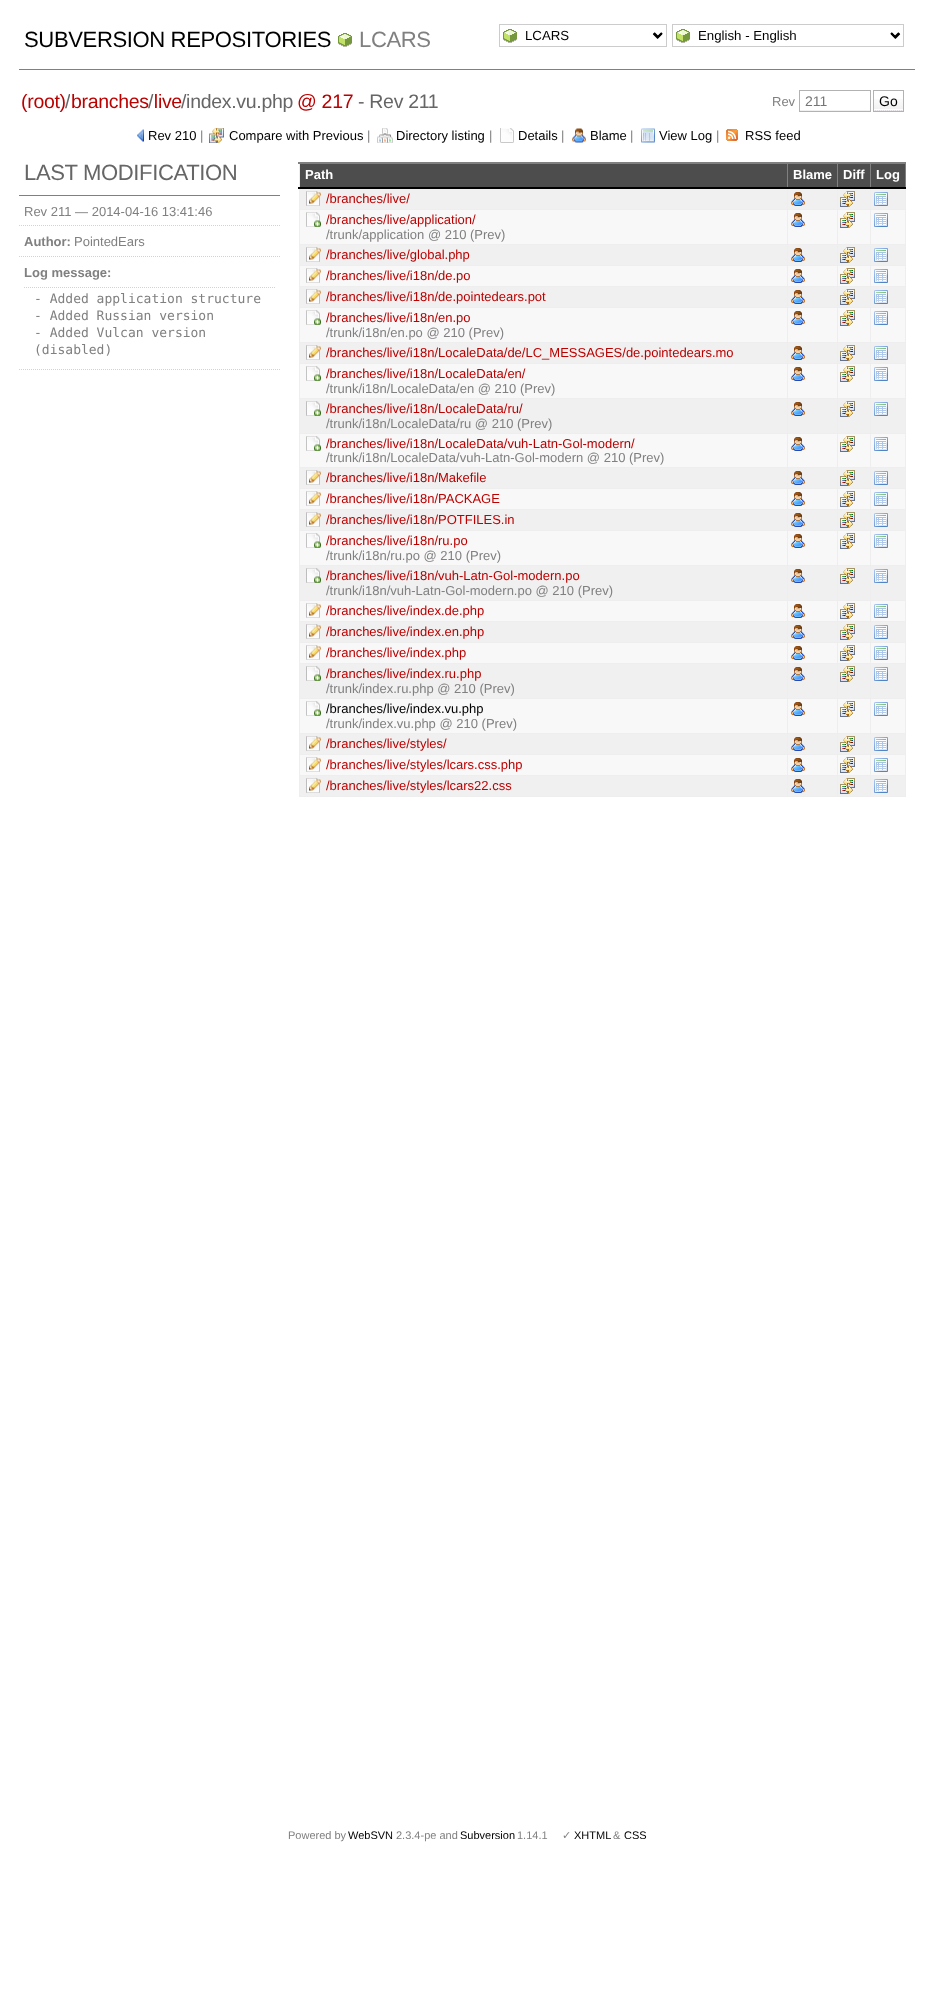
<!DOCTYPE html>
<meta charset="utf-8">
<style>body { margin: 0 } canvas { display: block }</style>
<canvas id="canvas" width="934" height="2010"></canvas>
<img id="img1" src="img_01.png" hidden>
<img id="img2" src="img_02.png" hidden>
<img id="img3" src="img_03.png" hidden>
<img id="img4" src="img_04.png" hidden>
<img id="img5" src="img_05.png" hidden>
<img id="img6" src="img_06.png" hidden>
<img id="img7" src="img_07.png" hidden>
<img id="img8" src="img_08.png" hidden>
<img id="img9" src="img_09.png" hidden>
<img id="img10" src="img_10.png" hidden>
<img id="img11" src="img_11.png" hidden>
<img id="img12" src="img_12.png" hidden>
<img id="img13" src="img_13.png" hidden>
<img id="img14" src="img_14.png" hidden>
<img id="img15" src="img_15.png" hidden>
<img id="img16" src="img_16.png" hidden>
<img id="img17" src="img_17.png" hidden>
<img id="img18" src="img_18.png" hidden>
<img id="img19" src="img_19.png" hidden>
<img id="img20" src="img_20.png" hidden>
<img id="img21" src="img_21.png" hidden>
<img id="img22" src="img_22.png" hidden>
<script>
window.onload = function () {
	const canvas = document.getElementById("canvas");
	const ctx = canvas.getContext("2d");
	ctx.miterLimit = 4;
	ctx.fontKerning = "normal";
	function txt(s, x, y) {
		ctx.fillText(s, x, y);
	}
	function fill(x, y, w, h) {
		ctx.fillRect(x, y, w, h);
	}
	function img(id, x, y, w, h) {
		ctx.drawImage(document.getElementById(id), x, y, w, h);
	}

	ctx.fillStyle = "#FFFFFF";
	fill(0, 0, 934, 2010);
	ctx.fillStyle = "#808080";
	fill(19, 69, 896, 1);
	img("img1", 338, 33, 14, 14);
	img("img2", 503, 29, 160, 14);
	ctx.strokeStyle = "#CCCCCC";
	ctx.strokeRect(499.5, 24.5, 167, 22);
	ctx.beginPath();
	ctx.moveTo(653.5, 33.5);
	ctx.lineTo(657.5, 37.5);
	ctx.lineTo(661.5, 33.5);
	ctx.strokeStyle = "#000000";
	ctx.lineWidth = 2;
	ctx.stroke();
	img("img3", 676, 29, 224, 14);
	ctx.strokeStyle = "#CCCCCC";
	ctx.lineWidth = 1;
	ctx.strokeRect(672.5, 24.5, 231, 22);
	ctx.beginPath();
	ctx.moveTo(891.5, 33.5);
	ctx.lineTo(895.5, 37.5);
	ctx.lineTo(899.5, 33.5);
	ctx.strokeStyle = "#000000";
	ctx.lineWidth = 2;
	ctx.stroke();
	img("img4", 800, 110, 70, 1);
	ctx.strokeStyle = "#B2B2B2";
	ctx.lineWidth = 1;
	ctx.strokeRect(799.5, 90.5, 71, 21);
	img("img5", 874, 99, 29, 12);
	ctx.strokeRect(873.5, 90.5, 30, 21);
	img("img6", 137, 129, 7, 13);
	img("img7", 209, 128, 15, 15);
	img("img8", 377, 128, 16, 15);
	img("img9", 500, 128, 14, 15);
	img("img10", 572, 128, 14, 15);
	img("img11", 641, 128, 14, 15);
	img("img12", 726, 129, 12, 12);
	fill(19, 195, 261, 1);
	ctx.beginPath();
	ctx.moveTo(19, 225.5);
	ctx.lineTo(280, 225.5);
	ctx.strokeStyle = "#D3D3D3";
	ctx.setLineDash([1, 1]);
	ctx.stroke();
	ctx.beginPath();
	ctx.moveTo(19, 256.5);
	ctx.lineTo(280, 256.5);
	ctx.stroke();
	ctx.beginPath();
	ctx.moveTo(19, 369.5);
	ctx.lineTo(280, 369.5);
	ctx.stroke();
	ctx.beginPath();
	ctx.moveTo(24, 287.5);
	ctx.lineTo(275, 287.5);
	ctx.stroke();
	ctx.fillStyle = "#4D4D4D";
	fill(300, 164, 605, 23);
	ctx.fillStyle = "#EEEEEE";
	fill(870, 209, 36, 1);
	fill(870, 244, 36, 1);
	fill(870, 265, 36, 1);
	fill(870, 286, 36, 1);
	fill(870, 307, 36, 1);
	fill(870, 342, 36, 1);
	fill(870, 363, 36, 1);
	fill(870, 398, 36, 1);
	fill(870, 433, 36, 1);
	fill(870, 467, 36, 1);
	fill(870, 488, 36, 1);
	fill(870, 509, 36, 1);
	fill(870, 530, 36, 1);
	fill(870, 565, 36, 1);
	fill(870, 600, 36, 1);
	fill(870, 621, 36, 1);
	fill(870, 642, 36, 1);
	fill(870, 663, 36, 1);
	fill(870, 698, 36, 1);
	fill(870, 733, 36, 1);
	fill(870, 754, 36, 1);
	fill(870, 775, 36, 1);
	fill(905, 775, 1, 22);
	fill(870, 796, 36, 1);
	fill(870, 775, 1, 22);
	fill(837, 775, 34, 1);
	fill(870, 754, 1, 22);
	fill(837, 754, 34, 1);
	fill(870, 733, 1, 22);
	fill(837, 733, 34, 1);
	fill(870, 698, 1, 36);
	fill(837, 698, 34, 1);
	fill(870, 663, 1, 36);
	fill(837, 663, 34, 1);
	fill(870, 642, 1, 22);
	fill(837, 642, 34, 1);
	fill(870, 621, 1, 22);
	fill(837, 621, 34, 1);
	fill(870, 600, 1, 22);
	fill(837, 600, 34, 1);
	fill(870, 565, 1, 36);
	fill(837, 565, 34, 1);
	fill(870, 530, 1, 36);
	fill(837, 530, 34, 1);
	fill(870, 509, 1, 22);
	fill(837, 509, 34, 1);
	fill(870, 488, 1, 22);
	fill(837, 488, 34, 1);
	fill(870, 467, 1, 22);
	fill(837, 467, 34, 1);
	fill(870, 433, 1, 35);
	fill(837, 433, 34, 1);
	fill(870, 398, 1, 36);
	fill(837, 398, 34, 1);
	fill(870, 363, 1, 36);
	fill(837, 363, 34, 1);
	fill(870, 342, 1, 22);
	fill(837, 342, 34, 1);
	fill(870, 307, 1, 36);
	fill(837, 307, 34, 1);
	fill(870, 286, 1, 22);
	fill(837, 286, 34, 1);
	fill(870, 265, 1, 22);
	fill(837, 265, 34, 1);
	fill(870, 244, 1, 22);
	fill(837, 244, 34, 1);
	fill(870, 209, 1, 36);
	fill(837, 209, 34, 1);
	fill(837, 796, 34, 1);
	fill(837, 775, 1, 22);
	fill(787, 775, 51, 1);
	fill(837, 754, 1, 22);
	fill(787, 754, 51, 1);
	fill(837, 733, 1, 22);
	fill(787, 733, 51, 1);
	fill(837, 698, 1, 36);
	fill(787, 698, 51, 1);
	fill(837, 663, 1, 36);
	fill(787, 663, 51, 1);
	fill(837, 642, 1, 22);
	fill(787, 642, 51, 1);
	fill(837, 621, 1, 22);
	fill(787, 621, 51, 1);
	fill(837, 600, 1, 22);
	fill(787, 600, 51, 1);
	fill(837, 565, 1, 36);
	fill(787, 565, 51, 1);
	fill(837, 530, 1, 36);
	fill(787, 530, 51, 1);
	fill(837, 509, 1, 22);
	fill(787, 509, 51, 1);
	fill(837, 488, 1, 22);
	fill(787, 488, 51, 1);
	fill(837, 467, 1, 22);
	fill(787, 467, 51, 1);
	fill(837, 433, 1, 35);
	fill(787, 433, 51, 1);
	fill(837, 398, 1, 36);
	fill(787, 398, 51, 1);
	fill(837, 363, 1, 36);
	fill(787, 363, 51, 1);
	fill(837, 342, 1, 22);
	fill(787, 342, 51, 1);
	fill(837, 307, 1, 36);
	fill(787, 307, 51, 1);
	fill(837, 286, 1, 22);
	fill(787, 286, 51, 1);
	fill(837, 265, 1, 22);
	fill(787, 265, 51, 1);
	fill(837, 244, 1, 22);
	fill(787, 244, 51, 1);
	fill(837, 209, 1, 36);
	fill(787, 209, 51, 1);
	fill(787, 796, 51, 1);
	fill(787, 775, 1, 22);
	fill(299, 775, 489, 1);
	fill(787, 754, 1, 22);
	fill(299, 754, 489, 1);
	fill(787, 733, 1, 22);
	fill(299, 733, 489, 1);
	fill(787, 698, 1, 36);
	fill(299, 698, 489, 1);
	fill(787, 663, 1, 36);
	fill(299, 663, 489, 1);
	fill(787, 642, 1, 22);
	fill(299, 642, 489, 1);
	fill(787, 621, 1, 22);
	fill(299, 621, 489, 1);
	fill(787, 600, 1, 22);
	fill(299, 600, 489, 1);
	fill(787, 565, 1, 36);
	fill(299, 565, 489, 1);
	fill(787, 530, 1, 36);
	fill(299, 530, 489, 1);
	fill(787, 509, 1, 22);
	fill(299, 509, 489, 1);
	fill(787, 488, 1, 22);
	fill(299, 488, 489, 1);
	fill(787, 467, 1, 22);
	fill(299, 467, 489, 1);
	fill(787, 433, 1, 35);
	fill(299, 433, 489, 1);
	fill(787, 398, 1, 36);
	fill(299, 398, 489, 1);
	fill(787, 363, 1, 36);
	fill(299, 363, 489, 1);
	fill(787, 342, 1, 22);
	fill(299, 342, 489, 1);
	fill(787, 307, 1, 36);
	fill(299, 307, 489, 1);
	fill(787, 286, 1, 22);
	fill(299, 286, 489, 1);
	fill(787, 265, 1, 22);
	fill(299, 265, 489, 1);
	fill(787, 244, 1, 22);
	fill(299, 244, 489, 1);
	fill(787, 209, 1, 36);
	fill(299, 209, 489, 1);
	fill(787, 188, 1, 22);
	ctx.fillStyle = "#808080";
	fill(787, 163, 1, 26);
	ctx.fillStyle = "#EEEEEE";
	fill(837, 188, 1, 22);
	ctx.fillStyle = "#808080";
	fill(837, 163, 1, 26);
	ctx.fillStyle = "#EEEEEE";
	fill(870, 188, 1, 22);
	ctx.fillStyle = "#808080";
	fill(870, 163, 1, 26);
	ctx.fillStyle = "#EEEEEE";
	fill(905, 754, 1, 22);
	fill(905, 733, 1, 22);
	fill(905, 698, 1, 36);
	fill(905, 663, 1, 36);
	fill(905, 642, 1, 22);
	fill(905, 621, 1, 22);
	fill(905, 600, 1, 22);
	fill(905, 565, 1, 36);
	fill(905, 530, 1, 36);
	fill(905, 509, 1, 22);
	fill(905, 488, 1, 22);
	fill(905, 467, 1, 22);
	fill(905, 433, 1, 35);
	fill(905, 398, 1, 36);
	fill(905, 363, 1, 36);
	fill(905, 342, 1, 22);
	fill(905, 307, 1, 36);
	fill(905, 286, 1, 22);
	fill(905, 265, 1, 22);
	fill(905, 244, 1, 22);
	fill(905, 188, 1, 57);
	ctx.fillStyle = "#808080";
	fill(905, 163, 1, 26);
	ctx.fillStyle = "#EEEEEE";
	fill(299, 796, 489, 1);
	fill(299, 775, 1, 22);
	fill(299, 754, 1, 22);
	fill(299, 733, 1, 22);
	fill(299, 698, 1, 36);
	fill(299, 663, 1, 36);
	fill(299, 642, 1, 22);
	fill(299, 621, 1, 22);
	fill(299, 600, 1, 22);
	fill(299, 565, 1, 36);
	fill(299, 530, 1, 36);
	fill(299, 509, 1, 22);
	fill(299, 488, 1, 22);
	fill(299, 467, 1, 22);
	fill(299, 433, 1, 35);
	fill(299, 398, 1, 36);
	fill(299, 363, 1, 36);
	fill(299, 342, 1, 22);
	fill(299, 307, 1, 36);
	fill(299, 286, 1, 22);
	fill(299, 265, 1, 22);
	fill(299, 244, 1, 22);
	fill(299, 163, 1, 82);
	ctx.fillStyle = "#808080";
	fill(298, 162, 608, 2);
	ctx.fillStyle = "#000000";
	fill(298, 187, 608, 2);
	ctx.fillStyle = "#F0F0F0";
	fill(300, 189, 487, 20);
	img("img13", 306, 191, 15, 15);
	fill(788, 189, 49, 20);
	img("img14", 791, 192, 14, 14);
	fill(838, 189, 32, 20);
	img("img15", 840, 191, 15, 16);
	fill(871, 189, 34, 20);
	img("img16", 874, 192, 14, 14);
	ctx.fillStyle = "#F8F8F8";
	fill(300, 210, 487, 34);
	img("img17", 306, 212, 15, 15);
	fill(788, 210, 49, 34);
	img("img18", 791, 213, 14, 14);
	fill(838, 210, 32, 34);
	img("img19", 840, 212, 15, 16);
	fill(871, 210, 34, 34);
	img("img20", 874, 213, 14, 14);
	ctx.fillStyle = "#F0F0F0";
	fill(300, 245, 487, 20);
	img("img13", 306, 247, 15, 15);
	fill(788, 245, 49, 20);
	img("img14", 791, 248, 14, 14);
	fill(838, 245, 32, 20);
	img("img15", 840, 247, 15, 16);
	fill(871, 245, 34, 20);
	img("img16", 874, 248, 14, 14);
	ctx.fillStyle = "#F8F8F8";
	fill(300, 266, 487, 20);
	img("img21", 306, 268, 15, 15);
	fill(788, 266, 49, 20);
	img("img18", 791, 269, 14, 14);
	fill(838, 266, 32, 20);
	img("img19", 840, 268, 15, 16);
	fill(871, 266, 34, 20);
	img("img20", 874, 269, 14, 14);
	ctx.fillStyle = "#F0F0F0";
	fill(300, 287, 487, 20);
	img("img13", 306, 289, 15, 15);
	fill(788, 287, 49, 20);
	img("img14", 791, 290, 14, 14);
	fill(838, 287, 32, 20);
	img("img15", 840, 289, 15, 16);
	fill(871, 287, 34, 20);
	img("img16", 874, 290, 14, 14);
	ctx.fillStyle = "#F8F8F8";
	fill(300, 308, 487, 34);
	img("img17", 306, 310, 15, 15);
	fill(788, 308, 49, 34);
	img("img18", 791, 311, 14, 14);
	fill(838, 308, 32, 34);
	img("img19", 840, 310, 15, 16);
	fill(871, 308, 34, 34);
	img("img20", 874, 311, 14, 14);
	ctx.fillStyle = "#F0F0F0";
	fill(300, 343, 487, 20);
	img("img13", 306, 345, 15, 15);
	fill(788, 343, 49, 20);
	img("img14", 791, 346, 14, 14);
	fill(838, 343, 32, 20);
	img("img15", 840, 345, 15, 16);
	fill(871, 343, 34, 20);
	img("img16", 874, 346, 14, 14);
	ctx.fillStyle = "#F8F8F8";
	fill(300, 364, 487, 34);
	img("img17", 306, 366, 15, 15);
	fill(788, 364, 49, 34);
	img("img18", 791, 367, 14, 14);
	fill(838, 364, 32, 34);
	img("img19", 840, 366, 15, 16);
	fill(871, 364, 34, 34);
	img("img20", 874, 367, 14, 14);
	ctx.fillStyle = "#F0F0F0";
	fill(300, 399, 487, 34);
	img("img22", 306, 401, 15, 15);
	fill(788, 399, 49, 34);
	img("img14", 791, 402, 14, 14);
	fill(838, 399, 32, 34);
	img("img15", 840, 401, 15, 16);
	fill(871, 399, 34, 34);
	img("img16", 874, 402, 14, 14);
	ctx.fillStyle = "#F8F8F8";
	fill(300, 434, 487, 33);
	img("img17", 306, 436, 15, 15);
	fill(788, 434, 49, 33);
	img("img18", 791, 437, 14, 14);
	fill(838, 434, 32, 33);
	img("img19", 840, 436, 15, 16);
	fill(871, 434, 34, 33);
	img("img20", 874, 437, 14, 14);
	ctx.fillStyle = "#F0F0F0";
	fill(300, 468, 487, 20);
	img("img13", 306, 470, 15, 15);
	fill(788, 468, 49, 20);
	img("img14", 791, 471, 14, 14);
	fill(838, 468, 32, 20);
	img("img15", 840, 470, 15, 16);
	fill(871, 468, 34, 20);
	img("img16", 874, 471, 14, 14);
	ctx.fillStyle = "#F8F8F8";
	fill(300, 489, 487, 20);
	img("img21", 306, 491, 15, 15);
	fill(788, 489, 49, 20);
	img("img18", 791, 492, 14, 14);
	fill(838, 489, 32, 20);
	img("img19", 840, 491, 15, 16);
	fill(871, 489, 34, 20);
	img("img20", 874, 492, 14, 14);
	ctx.fillStyle = "#F0F0F0";
	fill(300, 510, 487, 20);
	img("img13", 306, 512, 15, 15);
	fill(788, 510, 49, 20);
	img("img14", 791, 513, 14, 14);
	fill(838, 510, 32, 20);
	img("img15", 840, 512, 15, 16);
	fill(871, 510, 34, 20);
	img("img16", 874, 513, 14, 14);
	ctx.fillStyle = "#F8F8F8";
	fill(300, 531, 487, 34);
	img("img17", 306, 533, 15, 15);
	fill(788, 531, 49, 34);
	img("img18", 791, 534, 14, 14);
	fill(838, 531, 32, 34);
	img("img19", 840, 533, 15, 16);
	fill(871, 531, 34, 34);
	img("img20", 874, 534, 14, 14);
	ctx.fillStyle = "#F0F0F0";
	fill(300, 566, 487, 34);
	img("img22", 306, 568, 15, 15);
	fill(788, 566, 49, 34);
	img("img14", 791, 569, 14, 14);
	fill(838, 566, 32, 34);
	img("img15", 840, 568, 15, 16);
	fill(871, 566, 34, 34);
	img("img16", 874, 569, 14, 14);
	ctx.fillStyle = "#F8F8F8";
	fill(300, 601, 487, 20);
	img("img21", 306, 603, 15, 15);
	fill(788, 601, 49, 20);
	img("img18", 791, 604, 14, 14);
	fill(838, 601, 32, 20);
	img("img19", 840, 603, 15, 16);
	fill(871, 601, 34, 20);
	img("img20", 874, 604, 14, 14);
	ctx.fillStyle = "#F0F0F0";
	fill(300, 622, 487, 20);
	img("img13", 306, 624, 15, 15);
	fill(788, 622, 49, 20);
	img("img14", 791, 625, 14, 14);
	fill(838, 622, 32, 20);
	img("img15", 840, 624, 15, 16);
	fill(871, 622, 34, 20);
	img("img16", 874, 625, 14, 14);
	ctx.fillStyle = "#F8F8F8";
	fill(300, 643, 487, 20);
	img("img21", 306, 645, 15, 15);
	fill(788, 643, 49, 20);
	img("img18", 791, 646, 14, 14);
	fill(838, 643, 32, 20);
	img("img19", 840, 645, 15, 16);
	fill(871, 643, 34, 20);
	img("img20", 874, 646, 14, 14);
	ctx.fillStyle = "#F0F0F0";
	fill(300, 664, 487, 34);
	img("img22", 306, 666, 15, 15);
	fill(788, 664, 49, 34);
	img("img14", 791, 667, 14, 14);
	fill(838, 664, 32, 34);
	img("img15", 840, 666, 15, 16);
	fill(871, 664, 34, 34);
	img("img16", 874, 667, 14, 14);
	ctx.fillStyle = "#F8F8F8";
	fill(300, 699, 487, 34);
	img("img17", 306, 701, 15, 15);
	fill(788, 699, 49, 34);
	img("img18", 791, 702, 14, 14);
	fill(838, 699, 32, 34);
	img("img19", 840, 701, 15, 16);
	fill(871, 699, 34, 34);
	img("img20", 874, 702, 14, 14);
	ctx.fillStyle = "#F0F0F0";
	fill(300, 734, 487, 20);
	img("img13", 306, 736, 15, 15);
	fill(788, 734, 49, 20);
	img("img14", 791, 737, 14, 14);
	fill(838, 734, 32, 20);
	img("img15", 840, 736, 15, 16);
	fill(871, 734, 34, 20);
	img("img16", 874, 737, 14, 14);
	ctx.fillStyle = "#F8F8F8";
	fill(300, 755, 487, 20);
	img("img21", 306, 757, 15, 15);
	fill(788, 755, 49, 20);
	img("img18", 791, 758, 14, 14);
	fill(838, 755, 32, 20);
	img("img19", 840, 757, 15, 16);
	fill(871, 755, 34, 20);
	img("img20", 874, 758, 14, 14);
	ctx.fillStyle = "#F0F0F0";
	fill(300, 776, 487, 20);
	img("img13", 306, 778, 15, 15);
	fill(788, 776, 49, 20);
	img("img14", 791, 779, 14, 14);
	fill(838, 776, 32, 20);
	img("img15", 840, 778, 15, 16);
	fill(871, 776, 34, 20);
	img("img16", 874, 779, 14, 14);
	ctx.letterSpacing = "-0.4px";
	ctx.font = "22.1px Liberation Sans";
	ctx.fillStyle = "#000000";
	txt("SUBVERSION REPOSITORIES", 24, 47);
	ctx.fillStyle = "#808080";
	txt("LCARS", 359, 47);
	ctx.letterSpacing = "0px";
	ctx.font = "13.25px Liberation Sans";
	ctx.fillStyle = "#000000";
	txt("LCARS", 525, 40);
	txt("English - English", 698, 40);
	ctx.letterSpacing = "-0.3px";
	ctx.font = "19.5px Liberation Sans";
	ctx.fillStyle = "#BB0000";
	txt("(root) branches live", 21, 108);
	ctx.fillStyle = "#666666";
	txt("/", 65, 108);
	ctx.fillStyle = "#FFFFFF";
	fill(70, 93, 1, 3);
	ctx.fillStyle = "#666666";
	txt("/", 148, 108);
	txt("/index.vu.php", 181, 108);
	ctx.fillStyle = "#BB0000";
	txt("@ 217", 297, 108);
	ctx.fillStyle = "#666666";
	txt("- Rev 211", 358, 108);
	ctx.letterSpacing = "0px";
	ctx.font = "13px Liberation Sans";
	ctx.fillStyle = "#808080";
	txt("Rev", 772, 106);
	ctx.font = "14px Liberation Sans";
	ctx.fillStyle = "#757575";
	txt("211", 805, 106);
	ctx.fillStyle = "#000000";
	txt("Go", 879, 106);
	ctx.font = "13px Liberation Sans";
	txt("Rev 210", 148, 140);
	ctx.fillStyle = "#808080";
	txt("|", 200, 140);
	ctx.fillStyle = "#000000";
	txt("Compare with Previous", 229, 140);
	ctx.fillStyle = "#808080";
	txt("|", 367, 140);
	ctx.fillStyle = "#000000";
	txt("Directory listing", 396, 140);
	ctx.fillStyle = "#808080";
	txt("|", 489, 140);
	ctx.fillStyle = "#000000";
	txt("Details", 518, 140);
	ctx.fillStyle = "#808080";
	txt("|", 561, 140);
	ctx.fillStyle = "#000000";
	txt("Blame", 590, 140);
	ctx.fillStyle = "#808080";
	txt("|", 630, 140);
	ctx.fillStyle = "#000000";
	txt("View Log", 659, 140);
	ctx.fillStyle = "#808080";
	txt("|", 716, 140);
	ctx.fillStyle = "#000000";
	txt("RSS feed", 745, 140);
	ctx.letterSpacing = "-0.4px";
	ctx.font = "22.1px Liberation Sans";
	ctx.fillStyle = "#666666";
	txt("LAST MODIFICATION", 24, 180);
	ctx.letterSpacing = "0px";
	ctx.font = "13px Liberation Sans";
	ctx.fillStyle = "#808080";
	txt("Rev 211 — 2014-04-16 13:41:46", 24, 216);
	ctx.font = "bold 13px Liberation Sans";
	txt("Author:", 24, 246);
	ctx.font = "13px Liberation Sans";
	txt("PointedEars", 74, 246);
	ctx.font = "bold 13px Liberation Sans";
	txt("Log message:", 24, 277);
	ctx.font = "13px DejaVu Sans Mono";
	txt("- Added application structure", 34, 303);
	txt("- Added Russian version", 34, 320);
	txt("- Added Vulcan version", 34, 337);
	txt("(disabled)", 34, 354);
	ctx.font = "bold 13px Liberation Sans";
	ctx.fillStyle = "#FFFFFF";
	txt("Path", 305, 179);
	txt("Blame", 793, 179);
	txt("Diff", 843, 179);
	txt("Log", 876, 179);
	ctx.font = "13px Liberation Sans";
	ctx.fillStyle = "#BB0000";
	txt("/branches/live/", 326, 203);
	txt("/branches/live/application/", 326, 224);
	ctx.fillStyle = "#808080";
	txt("/trunk/application @ 210 (Prev)", 326, 239);
	ctx.fillStyle = "#BB0000";
	txt("/branches/live/global.php", 326, 259);
	txt("/branches/live/i18n/de.po", 326, 280);
	txt("/branches/live/i18n/de.pointedears.pot", 326, 301);
	txt("/branches/live/i18n/en.po", 326, 322);
	ctx.fillStyle = "#808080";
	txt("/trunk/i18n/en.po @ 210 (Prev)", 326, 337);
	ctx.fillStyle = "#BB0000";
	txt("/branches/live/i18n/LocaleData/de/LC_MESSAGES/de.pointedears.mo", 326, 357);
	txt("/branches/live/i18n/LocaleData/en/", 326, 378);
	ctx.fillStyle = "#808080";
	txt("/trunk/i18n/LocaleData/en @ 210 (Prev)", 326, 393);
	ctx.fillStyle = "#BB0000";
	txt("/branches/live/i18n/LocaleData/ru/", 326, 413);
	ctx.fillStyle = "#808080";
	txt("/trunk/i18n/LocaleData/ru @ 210 (Prev)", 326, 428);
	ctx.fillStyle = "#BB0000";
	txt("/branches/live/i18n/LocaleData/vuh-Latn-Gol-modern/", 326, 448);
	ctx.fillStyle = "#808080";
	txt("/trunk/i18n/LocaleData/vuh-Latn-Gol-modern @ 210 (Prev)", 326, 462);
	ctx.fillStyle = "#BB0000";
	txt("/branches/live/i18n/Makefile", 326, 482);
	txt("/branches/live/i18n/PACKAGE", 326, 503);
	txt("/branches/live/i18n/POTFILES.in", 326, 524);
	txt("/branches/live/i18n/ru.po", 326, 545);
	ctx.fillStyle = "#808080";
	txt("/trunk/i18n/ru.po @ 210 (Prev)", 326, 560);
	ctx.fillStyle = "#BB0000";
	txt("/branches/live/i18n/vuh-Latn-Gol-modern.po", 326, 580);
	ctx.fillStyle = "#808080";
	txt("/trunk/i18n/vuh-Latn-Gol-modern.po @ 210 (Prev)", 326, 595);
	ctx.fillStyle = "#BB0000";
	txt("/branches/live/index.de.php", 326, 615);
	txt("/branches/live/index.en.php", 326, 636);
	txt("/branches/live/index.php", 326, 657);
	txt("/branches/live/index.ru.php", 326, 678);
	ctx.fillStyle = "#808080";
	txt("/trunk/index.ru.php @ 210 (Prev)", 326, 693);
	ctx.fillStyle = "#000000";
	txt("/branches/live/index.vu.php", 326, 713);
	ctx.fillStyle = "#808080";
	txt("/trunk/index.vu.php @ 210 (Prev)", 326, 728);
	ctx.fillStyle = "#BB0000";
	txt("/branches/live/styles/", 326, 748);
	txt("/branches/live/styles/lcars.css.php", 326, 769);
	txt("/branches/live/styles/lcars22.css", 326, 790);
	ctx.font = "11px Liberation Sans";
	ctx.fillStyle = "#808080";
	txt("Powered by", 288, 1839);
	ctx.fillStyle = "#000000";
	txt("WebSVN", 348, 1839);
	ctx.fillStyle = "#808080";
	txt("2.3.4-pe and", 396, 1839);
	ctx.fillStyle = "#000000";
	txt("Subversion", 460, 1839);
	ctx.fillStyle = "#808080";
	txt("1.14.1", 517, 1839);
	ctx.font = "11px DejaVu Sans";
	txt("✓", 562, 1839);
	ctx.font = "11px Liberation Sans";
	ctx.fillStyle = "#000000";
	txt("XHTML", 574, 1839);
	ctx.fillStyle = "#808080";
	txt("&", 613, 1839);
	ctx.fillStyle = "#000000";
	txt("CSS", 624, 1839);
};
</script>
